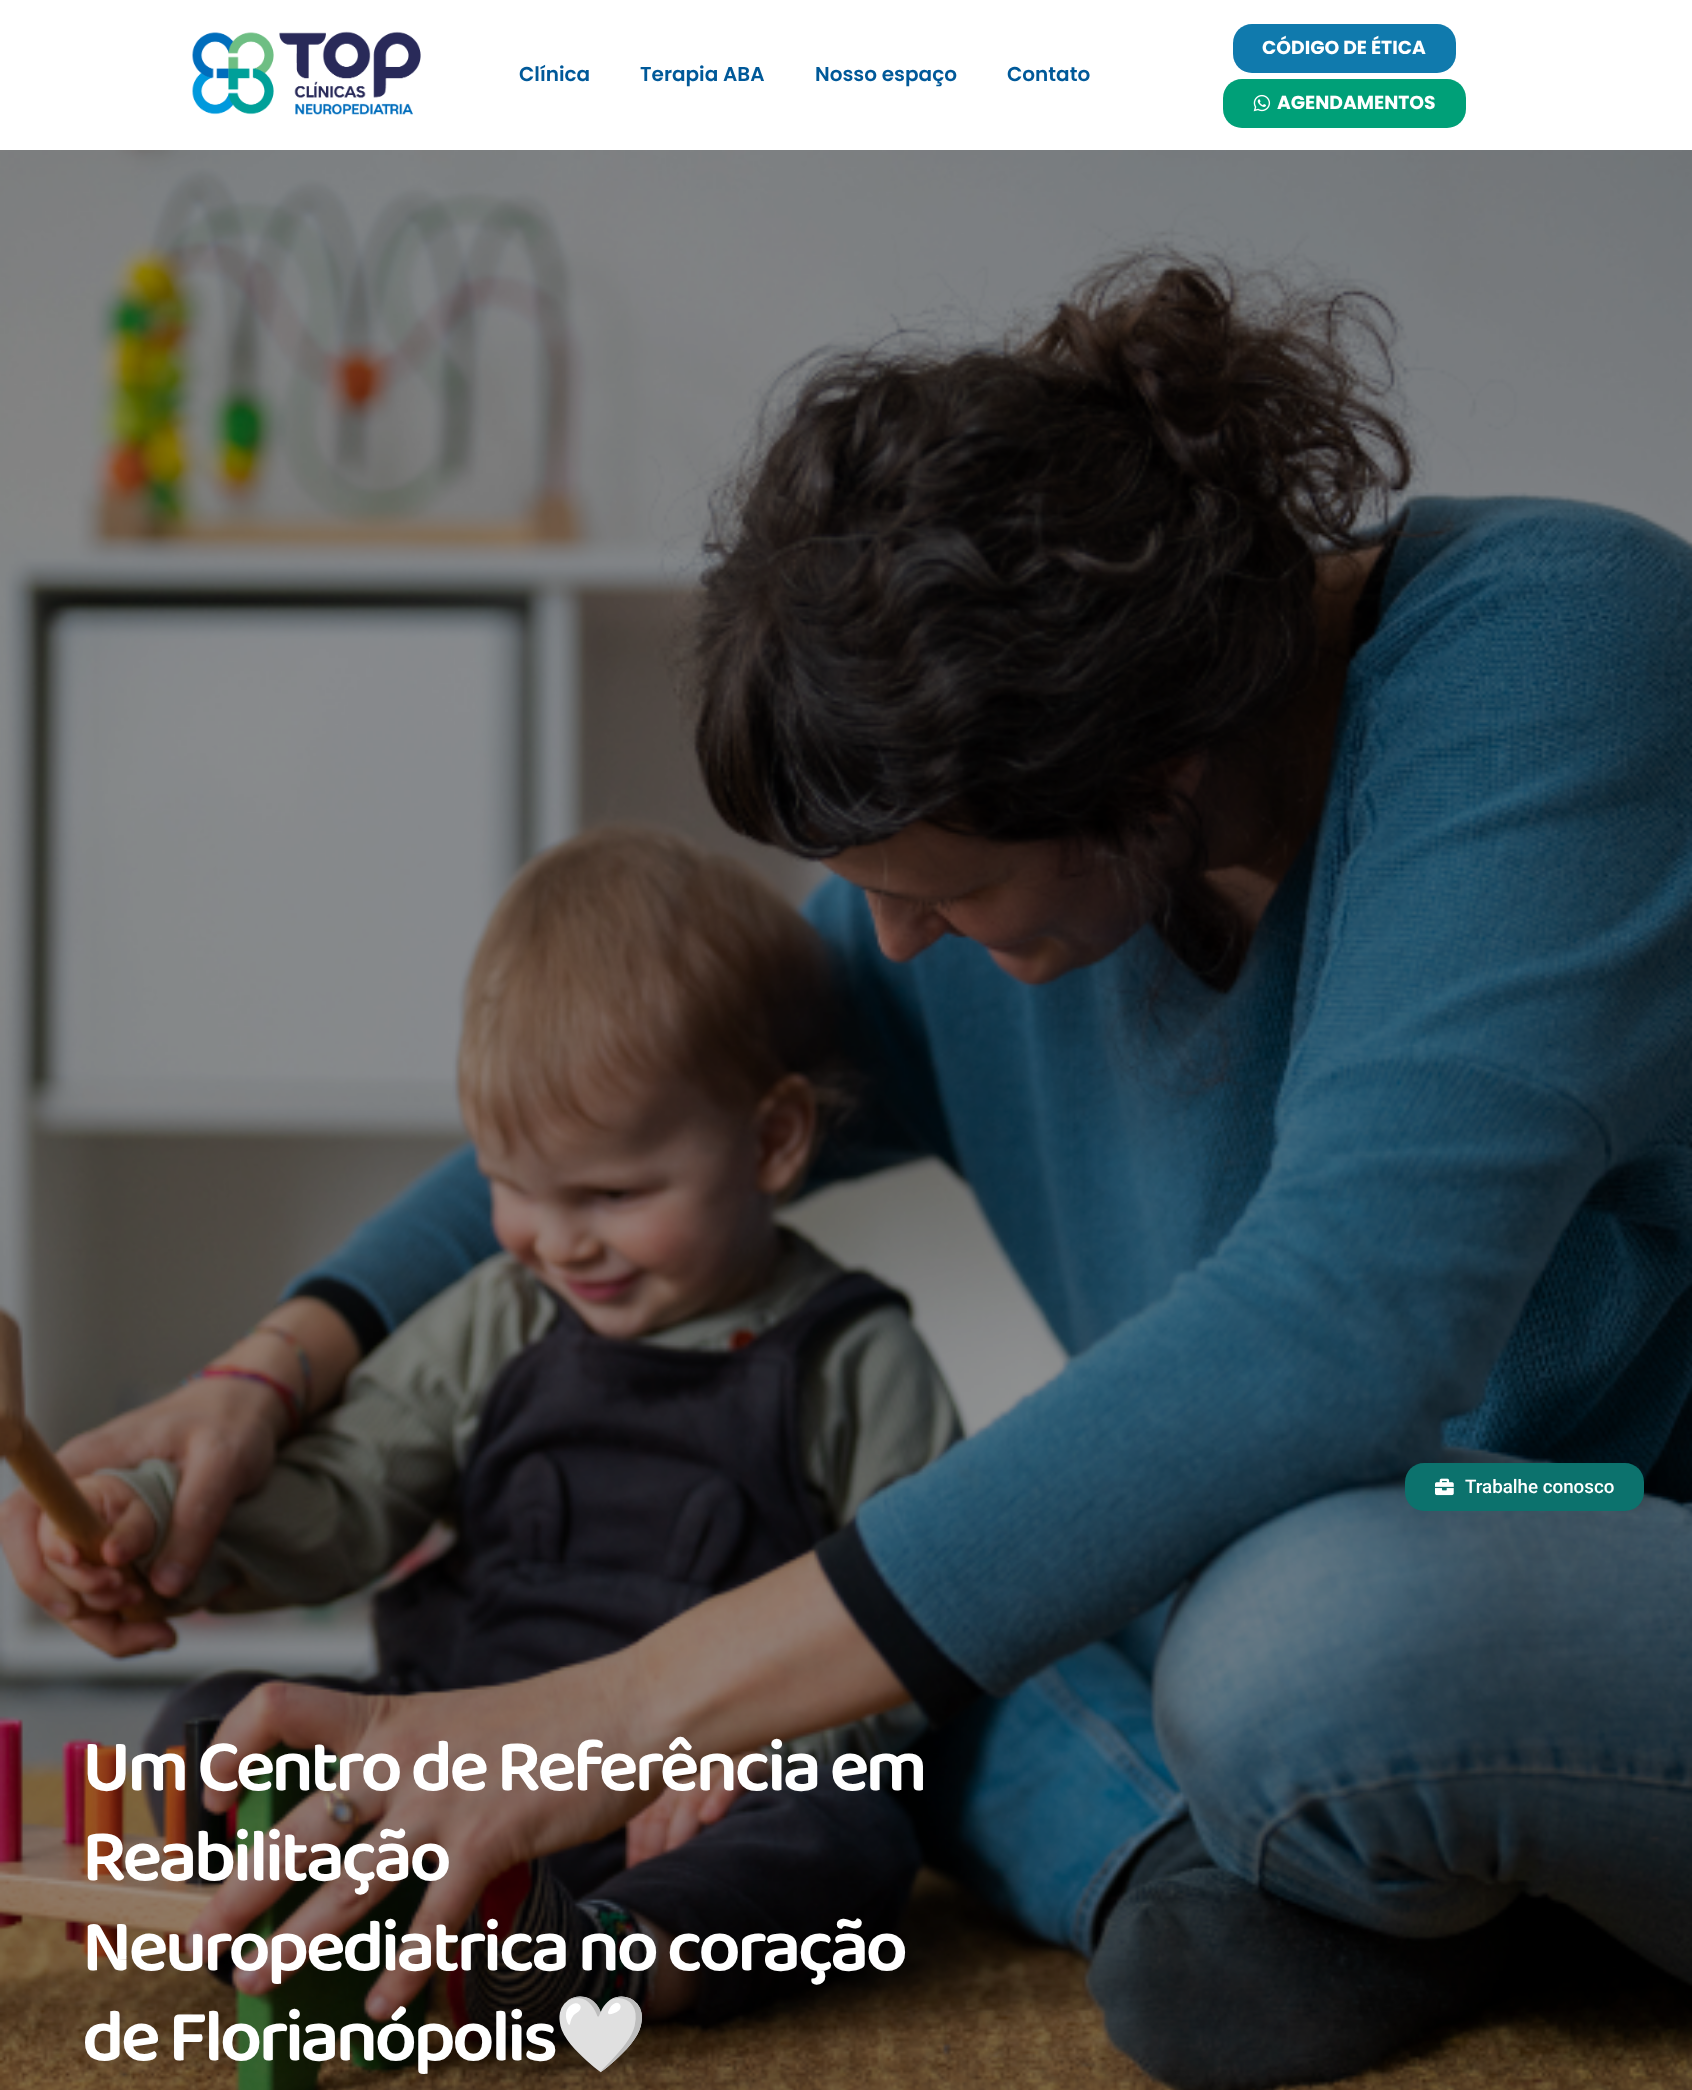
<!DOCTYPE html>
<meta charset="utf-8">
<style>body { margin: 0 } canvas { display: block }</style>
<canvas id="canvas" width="1692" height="2090"></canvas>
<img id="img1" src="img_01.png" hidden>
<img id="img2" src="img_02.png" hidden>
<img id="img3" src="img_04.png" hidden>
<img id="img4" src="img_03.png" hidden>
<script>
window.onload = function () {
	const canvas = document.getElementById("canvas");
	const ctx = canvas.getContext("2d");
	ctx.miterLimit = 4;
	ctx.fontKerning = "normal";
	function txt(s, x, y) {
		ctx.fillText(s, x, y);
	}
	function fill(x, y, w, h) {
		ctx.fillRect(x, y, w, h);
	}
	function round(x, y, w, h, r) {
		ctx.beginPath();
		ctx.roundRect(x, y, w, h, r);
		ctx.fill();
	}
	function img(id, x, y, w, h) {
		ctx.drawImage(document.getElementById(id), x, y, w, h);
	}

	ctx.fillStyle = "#FFFFFF";
	fill(0, 0, 1692, 2090);
	img("img1", 192, 31, 229, 84);
	ctx.fillStyle = "#107AAD";
	round(1233, 24, 223, 49, 19);
	ctx.fillStyle = "#00A078";
	round(1223, 79, 243, 49, 19);
	img("img2", 1253, 94, 18, 18);
	img("img3", 0, 150, 1692, 1940);
	ctx.fillStyle = "#0C726D";
	round(1405, 1463, 239, 48, 19);
	img("img4", 1435, 1478, 19, 18);
	ctx.font = "600 20px Poppins";
	ctx.fillStyle = "#005999";
	txt("Clínica", 519, 81);
	txt("Terapia ABA", 640, 81);
	txt("Nosso espaço", 815, 81);
	txt("Contato", 1007, 81);
	ctx.font = "bold 18.75px Poppins";
	ctx.fillStyle = "#FFFFFF";
	txt("CÓDIGO DE ÉTICA", 1262, 54);
	txt("AGENDAMENTOS", 1277, 109);
	ctx.font = "500 18.75px Roboto";
	txt("Trabalhe conosco", 1465, 1493);
	ctx.letterSpacing = "-3.75px";
	ctx.font = "600 75px 'Baloo 2'";
	txt("Um Centro de Referência em", 82, 1790);
	txt("Reabilitação", 82, 1880);
	txt("Neuropediatrica no coração", 82, 1970);
	txt("de Florianópolis", 82, 2060);
	ctx.font = "bold 75px Noto Color Emoji";
	txt("🤍", 554, 2060);
};
</script>
